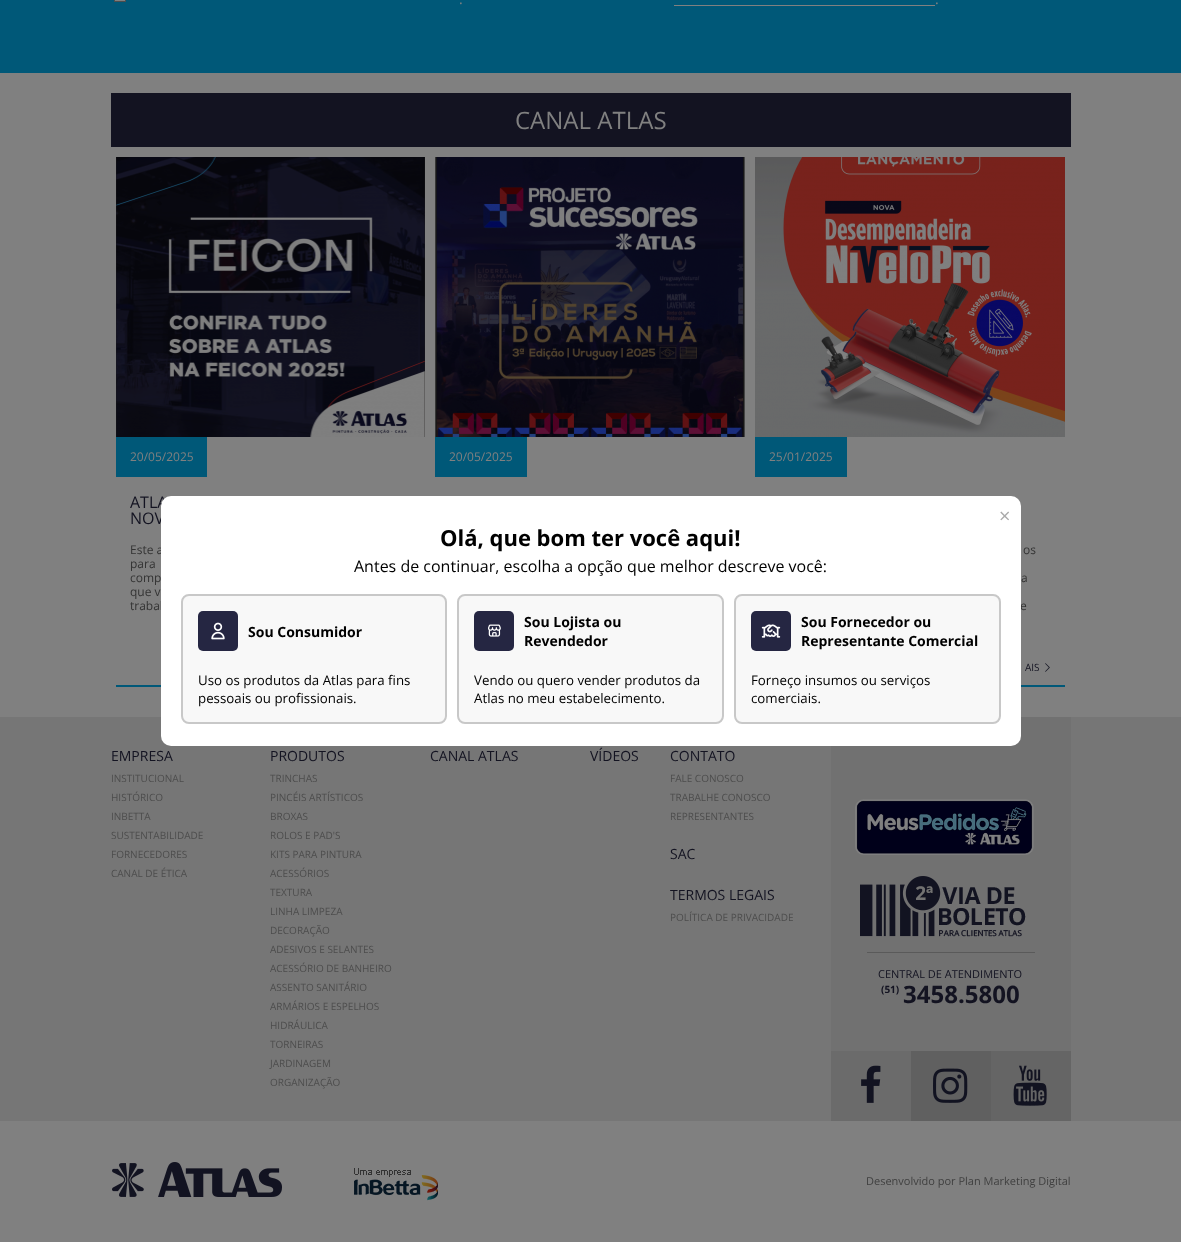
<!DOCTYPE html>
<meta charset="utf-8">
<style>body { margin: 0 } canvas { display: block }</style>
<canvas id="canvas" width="1181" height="1242"></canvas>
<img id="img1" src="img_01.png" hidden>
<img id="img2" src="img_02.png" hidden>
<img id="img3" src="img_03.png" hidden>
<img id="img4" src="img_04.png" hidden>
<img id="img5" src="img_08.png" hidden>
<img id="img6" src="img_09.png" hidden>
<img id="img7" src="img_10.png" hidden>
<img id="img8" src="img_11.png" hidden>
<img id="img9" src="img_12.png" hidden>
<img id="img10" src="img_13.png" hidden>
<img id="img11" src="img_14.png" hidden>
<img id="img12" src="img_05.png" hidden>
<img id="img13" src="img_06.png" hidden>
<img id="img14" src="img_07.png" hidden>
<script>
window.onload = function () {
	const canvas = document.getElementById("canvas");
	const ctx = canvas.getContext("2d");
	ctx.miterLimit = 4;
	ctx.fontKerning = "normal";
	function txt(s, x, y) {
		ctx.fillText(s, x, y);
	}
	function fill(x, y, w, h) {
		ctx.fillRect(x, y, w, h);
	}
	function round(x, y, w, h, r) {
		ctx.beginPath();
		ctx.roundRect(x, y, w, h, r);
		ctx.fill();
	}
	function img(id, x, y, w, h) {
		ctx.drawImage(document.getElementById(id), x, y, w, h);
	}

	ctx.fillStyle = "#808080";
	fill(0, 0, 1181, 1242);
	ctx.fillStyle = "#005878";
	fill(0, 0, 1181, 73);
	ctx.fillStyle = "#808080";
	ctx.beginPath();
	ctx.rect(114.5, -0.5, 11, 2);
	ctx.fill();
	ctx.strokeStyle = "#4D4D4D";
	ctx.stroke();
	fill(674, 5, 261, 1);
	ctx.fillStyle = "#131321";
	fill(111, 93, 960, 54);
	img("img1", 116, 157, 309, 280);
	ctx.fillStyle = "#005878";
	fill(116, 437, 91, 40);
	fill(116, 685, 45, 2);
	img("img2", 435, 157, 310, 280);
	fill(435, 437, 92, 40);
	img("img3", 755, 157, 310, 280);
	fill(755, 437, 92, 40);
	fill(1021, 685, 44, 2);
	img("img4", 1045, 663, 5, 9);
	ctx.fillStyle = "#767676";
	fill(0, 717, 1181, 404);
	ctx.fillStyle = "#717171";
	fill(831, 717, 240, 334);
	img("img5", 855, 799, 179, 56);
	img("img6", 860, 876, 166, 61);
	ctx.fillStyle = "#5A5A5A";
	fill(867, 952, 168, 1);
	ctx.fillStyle = "#6B6B6B";
	fill(831, 1051, 80, 70);
	img("img7", 861, 1065, 20, 38);
	ctx.fillStyle = "#606060";
	fill(911, 1051, 80, 70);
	img("img8", 933, 1068, 35, 35);
	ctx.fillStyle = "#656565";
	fill(991, 1051, 80, 70);
	img("img9", 1013, 1065, 34, 41);
	img("img10", 112, 1162, 170, 35);
	img("img11", 354, 1168, 84, 33);
	ctx.font = "14px Open Sans";
	ctx.fillStyle = "#808080";
	txt(".", 459, 4);
	txt(".", 935, 4);
	ctx.font = "24px Open Sans";
	txt("CANAL ATLAS", 515, 129);
	ctx.font = "12px Open Sans";
	txt("20/05/2025", 130, 461);
	ctx.font = "16px Open Sans";
	ctx.fillStyle = "#131321";
	txt("ATLA", 130, 508);
	txt("NOV", 130, 524);
	ctx.font = "12px Open Sans";
	ctx.fillStyle = "#333333";
	txt("Este a", 130, 554);
	txt("para", 130, 568);
	txt("comp", 130, 582);
	txt("que v", 130, 596);
	txt("trabal", 130, 610);
	ctx.fillStyle = "#808080";
	txt("20/05/2025", 449, 461);
	txt("25/01/2025", 769, 461);
	ctx.fillStyle = "#333333";
	txt("os", 1023, 554);
	txt("a", 1021, 582);
	txt("e", 1020, 610);
	ctx.font = "10px Open Sans";
	ctx.fillStyle = "#131321";
	txt("AIS", 1025, 671);
	ctx.fillStyle = "#FFFFFF";
	round(161, 496, 860, 250, 10);
	ctx.font = "20px Open Sans";
	ctx.fillStyle = "#AAAAAA";
	txt("×", 999, 523);
	ctx.font = "bold 22px Open Sans";
	ctx.fillStyle = "#000000";
	txt("Olá, que bom ter você aqui!", 440, 546);
	ctx.font = "16px Open Sans";
	txt("Antes de continuar, escolha a opção que melhor descreve você:", 354, 572);
	ctx.fillStyle = "#F8F8F8";
	ctx.beginPath();
	ctx.roundRect(182, 595, 264, 128, 7);
	ctx.fill();
	ctx.strokeStyle = "#C8C8C8";
	ctx.lineWidth = 2;
	ctx.stroke();
	ctx.fillStyle = "#252642";
	round(198, 611, 40, 40, 5);
	img("img12", 211, 622, 14, 18);
	ctx.font = "bold 14px Open Sans";
	ctx.fillStyle = "#000000";
	txt("Sou Consumidor", 248, 637);
	ctx.font = "13.3px Open Sans";
	txt("Uso os produtos da Atlas para fins", 198, 685);
	txt("pessoais ou profissionais.", 198, 703);
	ctx.fillStyle = "#F8F8F8";
	ctx.beginPath();
	ctx.roundRect(458, 595, 265, 128, 7);
	ctx.fill();
	ctx.stroke();
	ctx.fillStyle = "#252642";
	round(474, 611, 40, 40, 5);
	img("img13", 488, 624, 13, 13);
	ctx.font = "bold 14px Open Sans";
	ctx.fillStyle = "#000000";
	txt("Sou Lojista ou", 524, 627);
	txt("Revendedor", 524, 646);
	ctx.font = "13.3px Open Sans";
	txt("Vendo ou quero vender produtos da", 474, 685);
	txt("Atlas no meu estabelecimento.", 474, 703);
	ctx.fillStyle = "#F8F8F8";
	ctx.beginPath();
	ctx.roundRect(735, 595, 265, 128, 7);
	ctx.fill();
	ctx.stroke();
	ctx.fillStyle = "#252642";
	round(751, 611, 40, 40, 5);
	img("img14", 761, 624, 20, 14);
	ctx.font = "bold 14px Open Sans";
	ctx.fillStyle = "#000000";
	txt("Sou Fornecedor ou", 801, 627);
	txt("Representante Comercial", 801, 646);
	ctx.font = "13.3px Open Sans";
	txt("Forneço insumos ou serviços", 751, 685);
	txt("comerciais.", 751, 703);
	ctx.font = "14px Open Sans";
	ctx.fillStyle = "#131321";
	txt("EMPRESA", 111, 761);
	ctx.font = "10px Open Sans";
	ctx.fillStyle = "#4D4D4D";
	txt("INSTITUCIONAL", 111, 782);
	txt("HISTÓRICO", 111, 801);
	txt("INBETTA", 111, 820);
	txt("SUSTENTABILIDADE", 111, 839);
	txt("FORNECEDORES", 111, 858);
	txt("CANAL DE ÉTICA", 111, 877);
	ctx.font = "14px Open Sans";
	ctx.fillStyle = "#131321";
	txt("PRODUTOS", 270, 761);
	ctx.font = "10px Open Sans";
	ctx.fillStyle = "#4D4D4D";
	txt("TRINCHAS", 270, 782);
	txt("PINCÉIS ARTÍSTICOS", 270, 801);
	txt("BROXAS", 270, 820);
	txt("ROLOS E PAD'S", 270, 839);
	txt("KITS PARA PINTURA", 270, 858);
	txt("ACESSÓRIOS", 270, 877);
	txt("TEXTURA", 270, 896);
	txt("LINHA LIMPEZA", 270, 915);
	txt("DECORAÇÃO", 270, 934);
	txt("ADESIVOS E SELANTES", 270, 953);
	txt("ACESSÓRIO DE BANHEIRO", 270, 972);
	txt("ASSENTO SANITÁRIO", 270, 991);
	txt("ARMÁRIOS E ESPELHOS", 270, 1010);
	txt("HIDRÁULICA", 270, 1029);
	txt("TORNEIRAS", 270, 1048);
	txt("JARDINAGEM", 270, 1067);
	txt("ORGANIZAÇÃO", 270, 1086);
	ctx.font = "14px Open Sans";
	ctx.fillStyle = "#131321";
	txt("CANAL ATLAS", 430, 761);
	txt("VÍDEOS", 590, 761);
	txt("CONTATO", 670, 761);
	ctx.font = "10px Open Sans";
	ctx.fillStyle = "#4D4D4D";
	txt("FALE CONOSCO", 670, 782);
	txt("TRABALHE CONOSCO", 670, 801);
	txt("REPRESENTANTES", 670, 820);
	ctx.font = "14px Open Sans";
	ctx.fillStyle = "#131321";
	txt("SAC", 670, 859);
	txt("TERMOS LEGAIS", 670, 900);
	ctx.font = "10px Open Sans";
	ctx.fillStyle = "#4D4D4D";
	txt("POLÍTICA DE PRIVACIDADE", 670, 921);
	ctx.font = "11px Open Sans";
	ctx.fillStyle = "#131321";
	txt("CENTRAL DE ATENDIMENTO", 878, 978);
	ctx.font = "bold 10px Open Sans";
	txt("(51)", 881, 993);
	ctx.font = "bold 24px Open Sans";
	txt("3458.5800", 903, 1003);
	ctx.font = "11px Open Sans";
	ctx.fillStyle = "#3F3F3F";
	txt("Desenvolvido por Plan Marketing Digital", 866, 1185);
};
</script>
